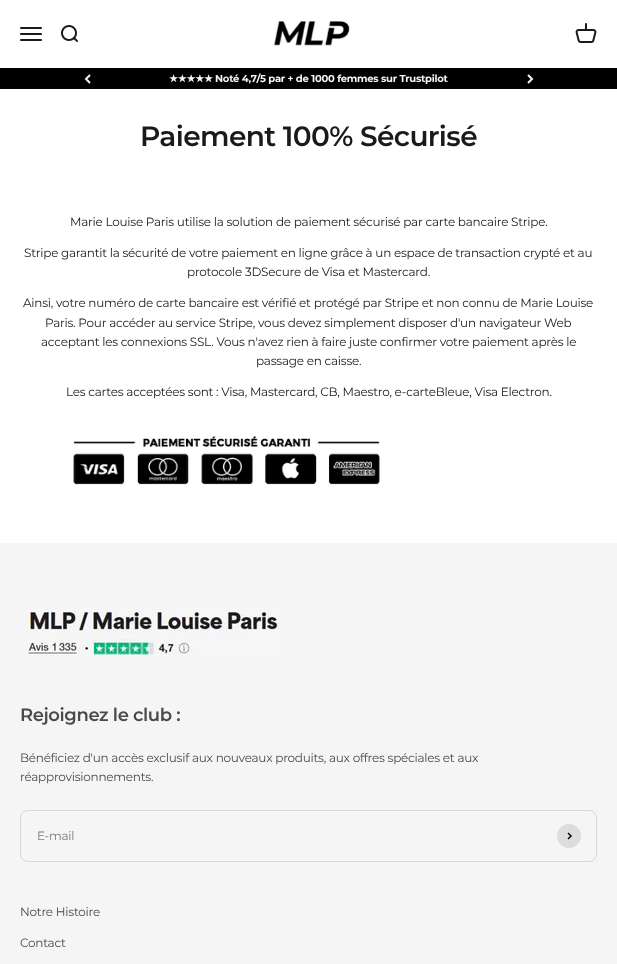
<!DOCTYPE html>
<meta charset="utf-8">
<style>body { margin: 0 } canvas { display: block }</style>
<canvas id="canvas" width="617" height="964"></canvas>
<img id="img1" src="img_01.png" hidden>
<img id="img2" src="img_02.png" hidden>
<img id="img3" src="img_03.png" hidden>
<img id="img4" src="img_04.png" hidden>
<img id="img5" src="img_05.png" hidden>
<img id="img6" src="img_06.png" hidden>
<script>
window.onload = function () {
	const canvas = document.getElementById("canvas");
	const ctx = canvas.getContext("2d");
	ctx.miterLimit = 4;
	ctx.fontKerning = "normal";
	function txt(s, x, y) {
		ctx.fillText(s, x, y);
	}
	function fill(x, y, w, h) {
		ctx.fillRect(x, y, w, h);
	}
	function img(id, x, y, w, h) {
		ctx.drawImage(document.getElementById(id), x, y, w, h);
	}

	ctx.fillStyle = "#FFFFFF";
	fill(0, 0, 617, 964);
	img("img1", 20, 27, 22, 14);
	img("img2", 61, 25, 17, 17);
	img("img3", 274, 21, 76, 25);
	img("img4", 575, 23, 22, 20);
	ctx.fillStyle = "#000000";
	fill(0, 68, 617, 21);
	ctx.beginPath();
	ctx.moveTo(90, 75);
	ctx.lineTo(86, 79);
	ctx.lineTo(90, 83);
	ctx.strokeStyle = "#F5F5F5";
	ctx.lineWidth = 2;
	ctx.stroke();
	ctx.beginPath();
	ctx.moveTo(528, 83);
	ctx.lineTo(532, 79);
	ctx.lineTo(528, 75);
	ctx.stroke();
	img("img5", 73, 436, 307, 49);
	ctx.fillStyle = "#F5F5F5";
	fill(0, 543, 617, 421);
	img("img6", 28, 607, 252, 50);
	ctx.beginPath();
	ctx.roundRect(20.5, 810.5, 576, 51, 7.5);
	ctx.strokeStyle = "#D8D8D8";
	ctx.lineWidth = 1;
	ctx.stroke();
	ctx.fillStyle = "#DDDDDD";
	ctx.beginPath();
	ctx.arc(569, 836, 12, 0, Math.PI * 2);
	ctx.fill();
	ctx.beginPath();
	ctx.moveTo(568, 839);
	ctx.lineTo(571, 836);
	ctx.lineTo(568, 833);
	ctx.strokeStyle = "#000000";
	ctx.lineWidth = 1.5;
	ctx.stroke();
	ctx.letterSpacing = "-0.24px";
	ctx.font = "bold 10px DejaVu Sans";
	ctx.fillStyle = "#F5F5F5";
	txt("★★★★★", 169, 82);
	ctx.font = "bold 10px Montserrat";
	txt("Noté 4,7/5 par + de 1000 femmes sur Trustpilot", 215, 82);
	ctx.letterSpacing = "-0.6px";
	ctx.font = "600 28px Montserrat";
	ctx.fillStyle = "#1A1A1A";
	txt("Paiement 100% Sécurisé", 140, 146);
	ctx.letterSpacing = "-0.24px";
	ctx.font = "12px Montserrat";
	txt("Marie Louise Paris utilise la solution de paiement sécurisé par carte bancaire Stripe.", 70, 226);
	txt("Stripe garantit la sécurité de votre paiement en ligne grâce à un espace de transaction crypté et au", 24, 257);
	txt("protocole 3DSecure de Visa et Mastercard.", 187, 276);
	txt("Ainsi, votre numéro de carte bancaire est vérifié et protégé par Stripe et non connu de Marie Louise", 23, 307);
	txt("Paris. Pour accéder au service Stripe, vous devez simplement disposer d'un navigateur Web", 45, 327);
	txt("acceptant les connexions SSL. Vous n'avez rien à faire juste confirmer votre paiement après le", 41, 346);
	txt("passage en caisse.", 256, 365);
	txt("Les cartes acceptées sont : Visa, Mastercard, CB, Maestro, e-carteBleue, Visa Electron.", 66, 396);
	ctx.letterSpacing = "-0.4px";
	ctx.font = "600 18px Montserrat";
	ctx.fillStyle = "#4A4A4A";
	txt("Rejoignez le club :", 20, 721);
	ctx.letterSpacing = "-0.24px";
	ctx.font = "12px Montserrat";
	txt("Bénéficiez d'un accès exclusif aux nouveaux produits, aux offres spéciales et aux", 20, 762);
	txt("réapprovisionnements.", 20, 781);
	ctx.fillStyle = "#7B7B7B";
	txt("E-mail", 37, 840);
	ctx.fillStyle = "#4A4A4A";
	txt("Notre Histoire", 20, 916);
	txt("Contact", 20, 947);
};
</script>
